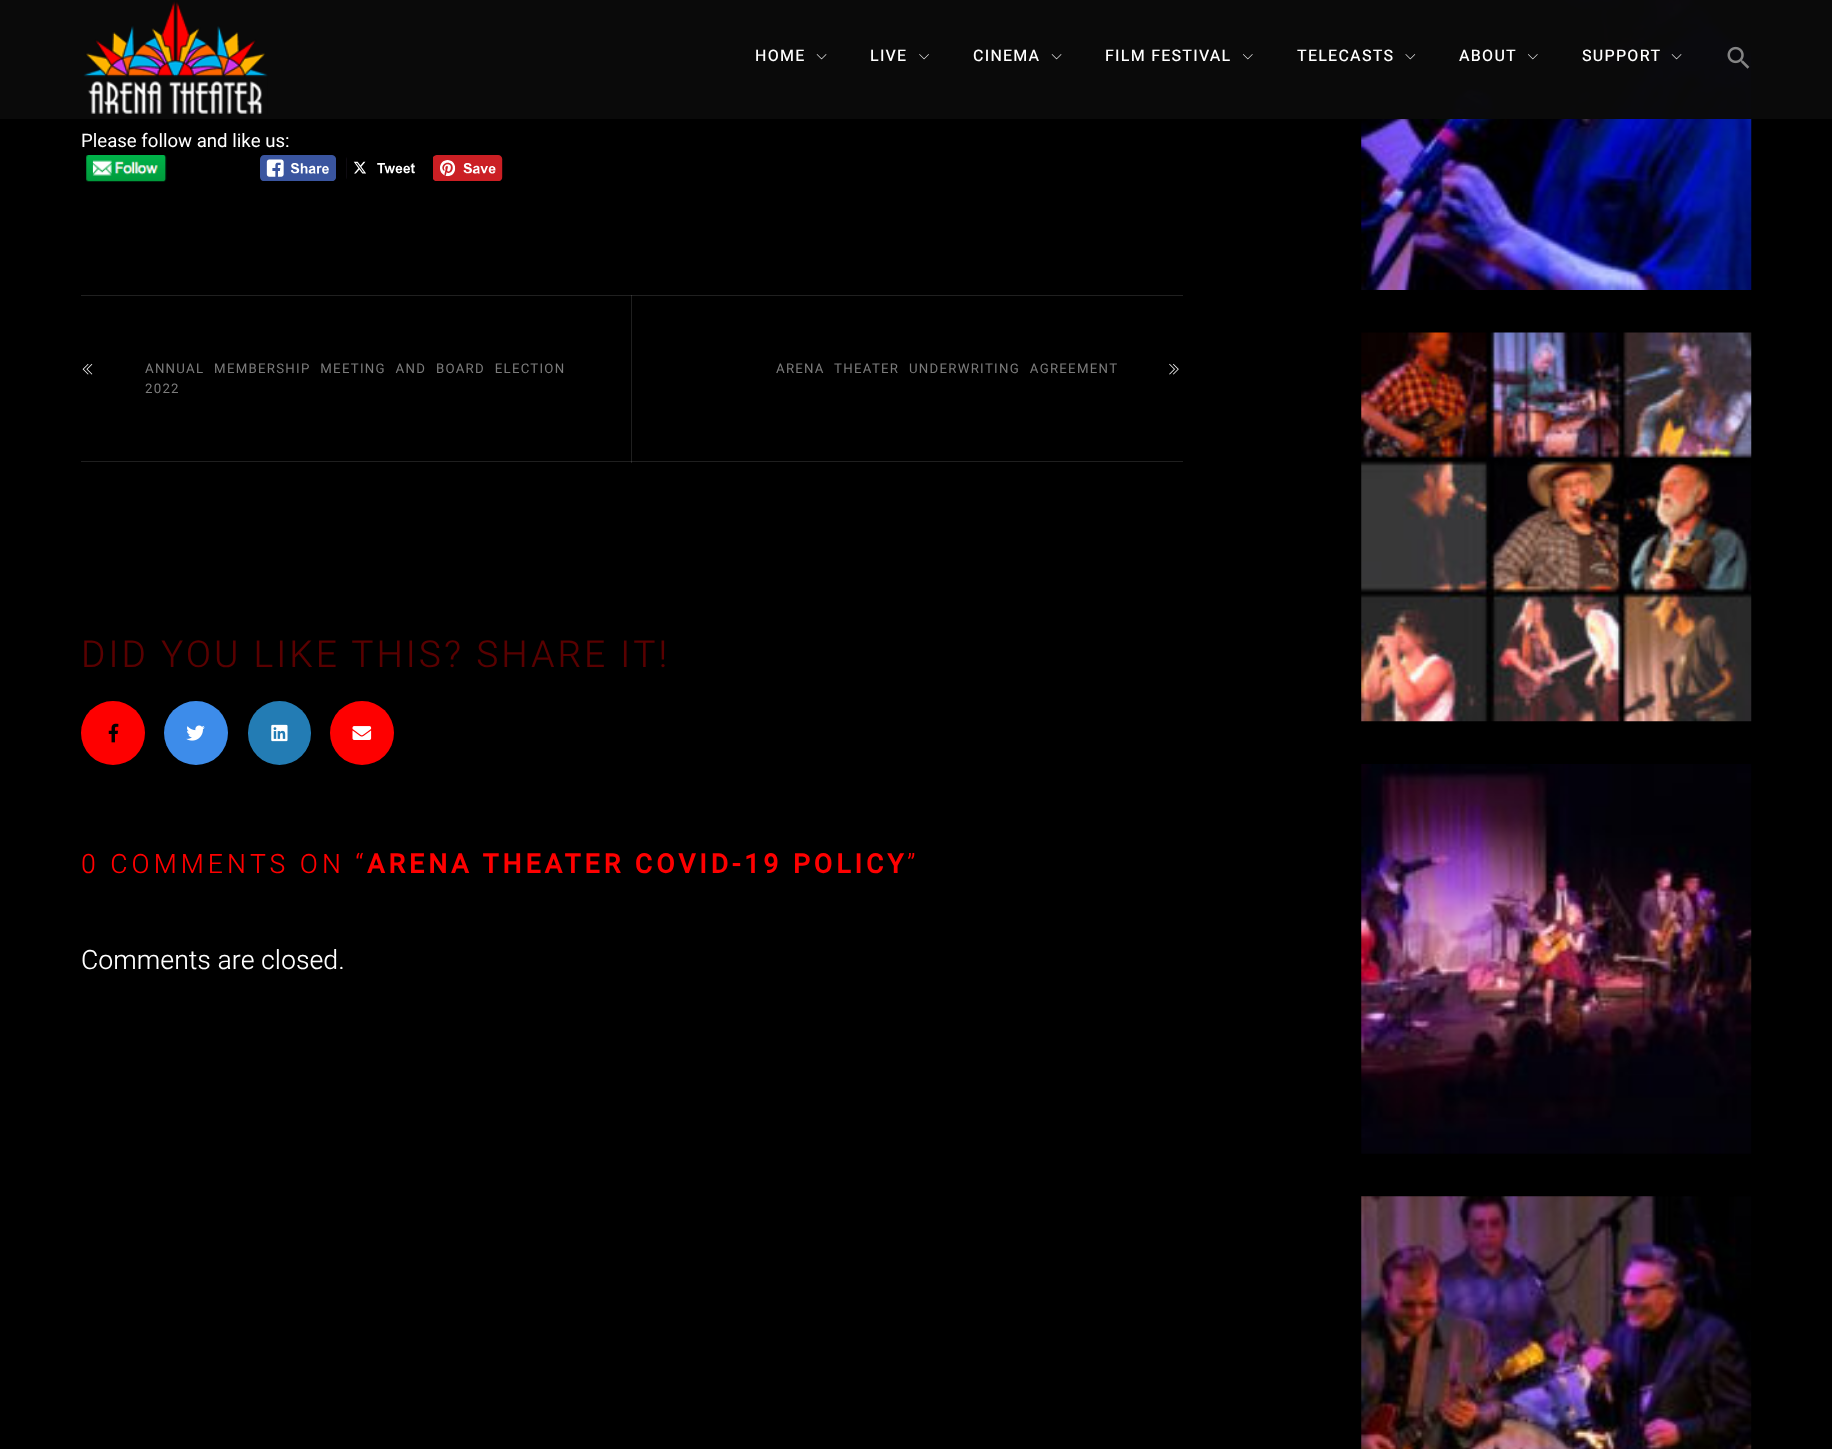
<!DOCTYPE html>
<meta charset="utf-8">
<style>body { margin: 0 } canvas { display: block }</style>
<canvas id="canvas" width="1832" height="1449"></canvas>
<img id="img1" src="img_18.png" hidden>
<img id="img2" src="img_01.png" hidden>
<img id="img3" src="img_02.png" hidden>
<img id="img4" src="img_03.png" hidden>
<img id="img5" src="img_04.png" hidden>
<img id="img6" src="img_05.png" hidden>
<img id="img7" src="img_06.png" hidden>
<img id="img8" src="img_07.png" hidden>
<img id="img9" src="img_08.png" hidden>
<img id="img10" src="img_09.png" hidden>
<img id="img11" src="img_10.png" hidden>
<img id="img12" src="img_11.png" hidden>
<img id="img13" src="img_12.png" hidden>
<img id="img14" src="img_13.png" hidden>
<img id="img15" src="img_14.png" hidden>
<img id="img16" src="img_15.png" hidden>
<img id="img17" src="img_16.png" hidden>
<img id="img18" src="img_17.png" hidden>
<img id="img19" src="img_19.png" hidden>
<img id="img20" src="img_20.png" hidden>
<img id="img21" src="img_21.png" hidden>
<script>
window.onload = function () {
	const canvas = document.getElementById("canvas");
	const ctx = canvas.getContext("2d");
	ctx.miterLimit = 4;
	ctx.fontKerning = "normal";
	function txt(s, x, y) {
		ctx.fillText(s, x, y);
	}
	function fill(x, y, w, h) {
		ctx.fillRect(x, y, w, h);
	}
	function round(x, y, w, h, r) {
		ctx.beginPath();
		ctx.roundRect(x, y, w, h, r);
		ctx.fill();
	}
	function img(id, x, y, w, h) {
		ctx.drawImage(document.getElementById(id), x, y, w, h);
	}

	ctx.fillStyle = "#000000";
	fill(0, 0, 1832, 1449);
	ctx.fillStyle = "#1F1F1F";
	fill(81, 461, 1102, 1);
	fill(631, 295, 1, 168);
	ctx.fillStyle = "#3A3A3A";
	fill(631, 461, 1, 1);
	img("img1", 1361, 0, 391, 290);
	ctx.fillStyle = "rgba(0, 0, 0, 0.98)";
	fill(1361, 0, 391, 119);
	ctx.fillStyle = "rgba(255, 255, 255, 0.04)";
	fill(0, 0, 1832, 119);
	img("img2", 83, 1, 185, 113);
	img("img3", 816, 54, 11, 6);
	img("img4", 919, 54, 10, 6);
	img("img3", 1051, 54, 11, 6);
	img("img5", 1243, 54, 10, 6);
	img("img6", 1405, 54, 11, 6);
	img("img5", 1528, 54, 10, 6);
	img("img7", 1671, 54, 11, 6);
	img("img8", 1727, 46, 23, 23);
	img("img9", 86, 155, 81, 27);
	img("img10", 260, 155, 76, 26);
	img("img11", 346, 157, 69, 22);
	img("img12", 433, 155, 70, 26);
	ctx.fillStyle = "#202020";
	fill(81, 295, 1102, 1);
	ctx.fillStyle = "#3B3B3B";
	fill(631, 295, 1, 1);
	img("img13", 82, 363, 11, 12);
	img("img14", 1169, 363, 10, 12);
	ctx.fillStyle = "#FE0000";
	ctx.beginPath();
	ctx.arc(113, 733, 32, 0, Math.PI * 2);
	ctx.fill();
	img("img15", 108, 723, 11, 20);
	ctx.fillStyle = "#3D8CEA";
	ctx.beginPath();
	ctx.arc(196, 733, 32, 0, Math.PI * 2);
	ctx.fill();
	img("img16", 186, 725, 19, 16);
	ctx.fillStyle = "#237CB4";
	round(248, 701, 63, 64, 31.5);
	img("img17", 271, 724, 17, 18);
	ctx.fillStyle = "#FE0000";
	ctx.beginPath();
	ctx.arc(362, 733, 32, 0, Math.PI * 2);
	ctx.fill();
	img("img18", 352, 726, 20, 14);
	img("img19", 1361, 332, 391, 390);
	img("img20", 1361, 764, 391, 390);
	img("img21", 1361, 1196, 391, 253);
	ctx.letterSpacing = "1.25px";
	ctx.font = "500 16px Heebo";
	ctx.fillStyle = "#FFFFFF";
	txt("HOME", 755, 61);
	txt("LIVE", 870, 61);
	txt("CINEMA", 973, 61);
	txt("FILM FESTIVAL", 1105, 61);
	txt("TELECASTS", 1297, 61);
	txt("ABOUT", 1459, 61);
	txt("SUPPORT", 1582, 61);
	ctx.letterSpacing = "0px";
	ctx.font = "18.6px Heebo";
	txt("Please follow and like us:", 81, 147);
	ctx.letterSpacing = "1.25px";
	ctx.wordSpacing = "5.25px";
	ctx.font = "13.25px Heebo";
	ctx.fillStyle = "#7C7C7C";
	txt("ANNUAL MEMBERSHIP MEETING AND BOARD ELECTION", 145, 373);
	ctx.wordSpacing = "0px";
	txt("2022", 145, 393);
	ctx.wordSpacing = "5.25px";
	txt("ARENA THEATER UNDERWRITING AGREEMENT", 776, 373);
	ctx.letterSpacing = "3px";
	ctx.wordSpacing = "0px";
	ctx.font = "300 37.25px Heebo";
	ctx.fillStyle = "#590000";
	txt("DID YOU LIKE THIS? SHARE IT!", 81, 667);
	ctx.letterSpacing = "4px";
	ctx.font = "300 26.6px Heebo";
	ctx.fillStyle = "#FE0000";
	txt("0 COMMENTS ON “", 81, 873);
	ctx.font = "bold 26.6px Heebo";
	txt("ARENA THEATER COVID-19 POLICY", 367, 873);
	ctx.font = "300 26.6px Heebo";
	txt("”", 907, 873);
	ctx.letterSpacing = "0px";
	ctx.fillStyle = "#FFFFFF";
	txt("Comments are closed.", 81, 969);
};
</script>
